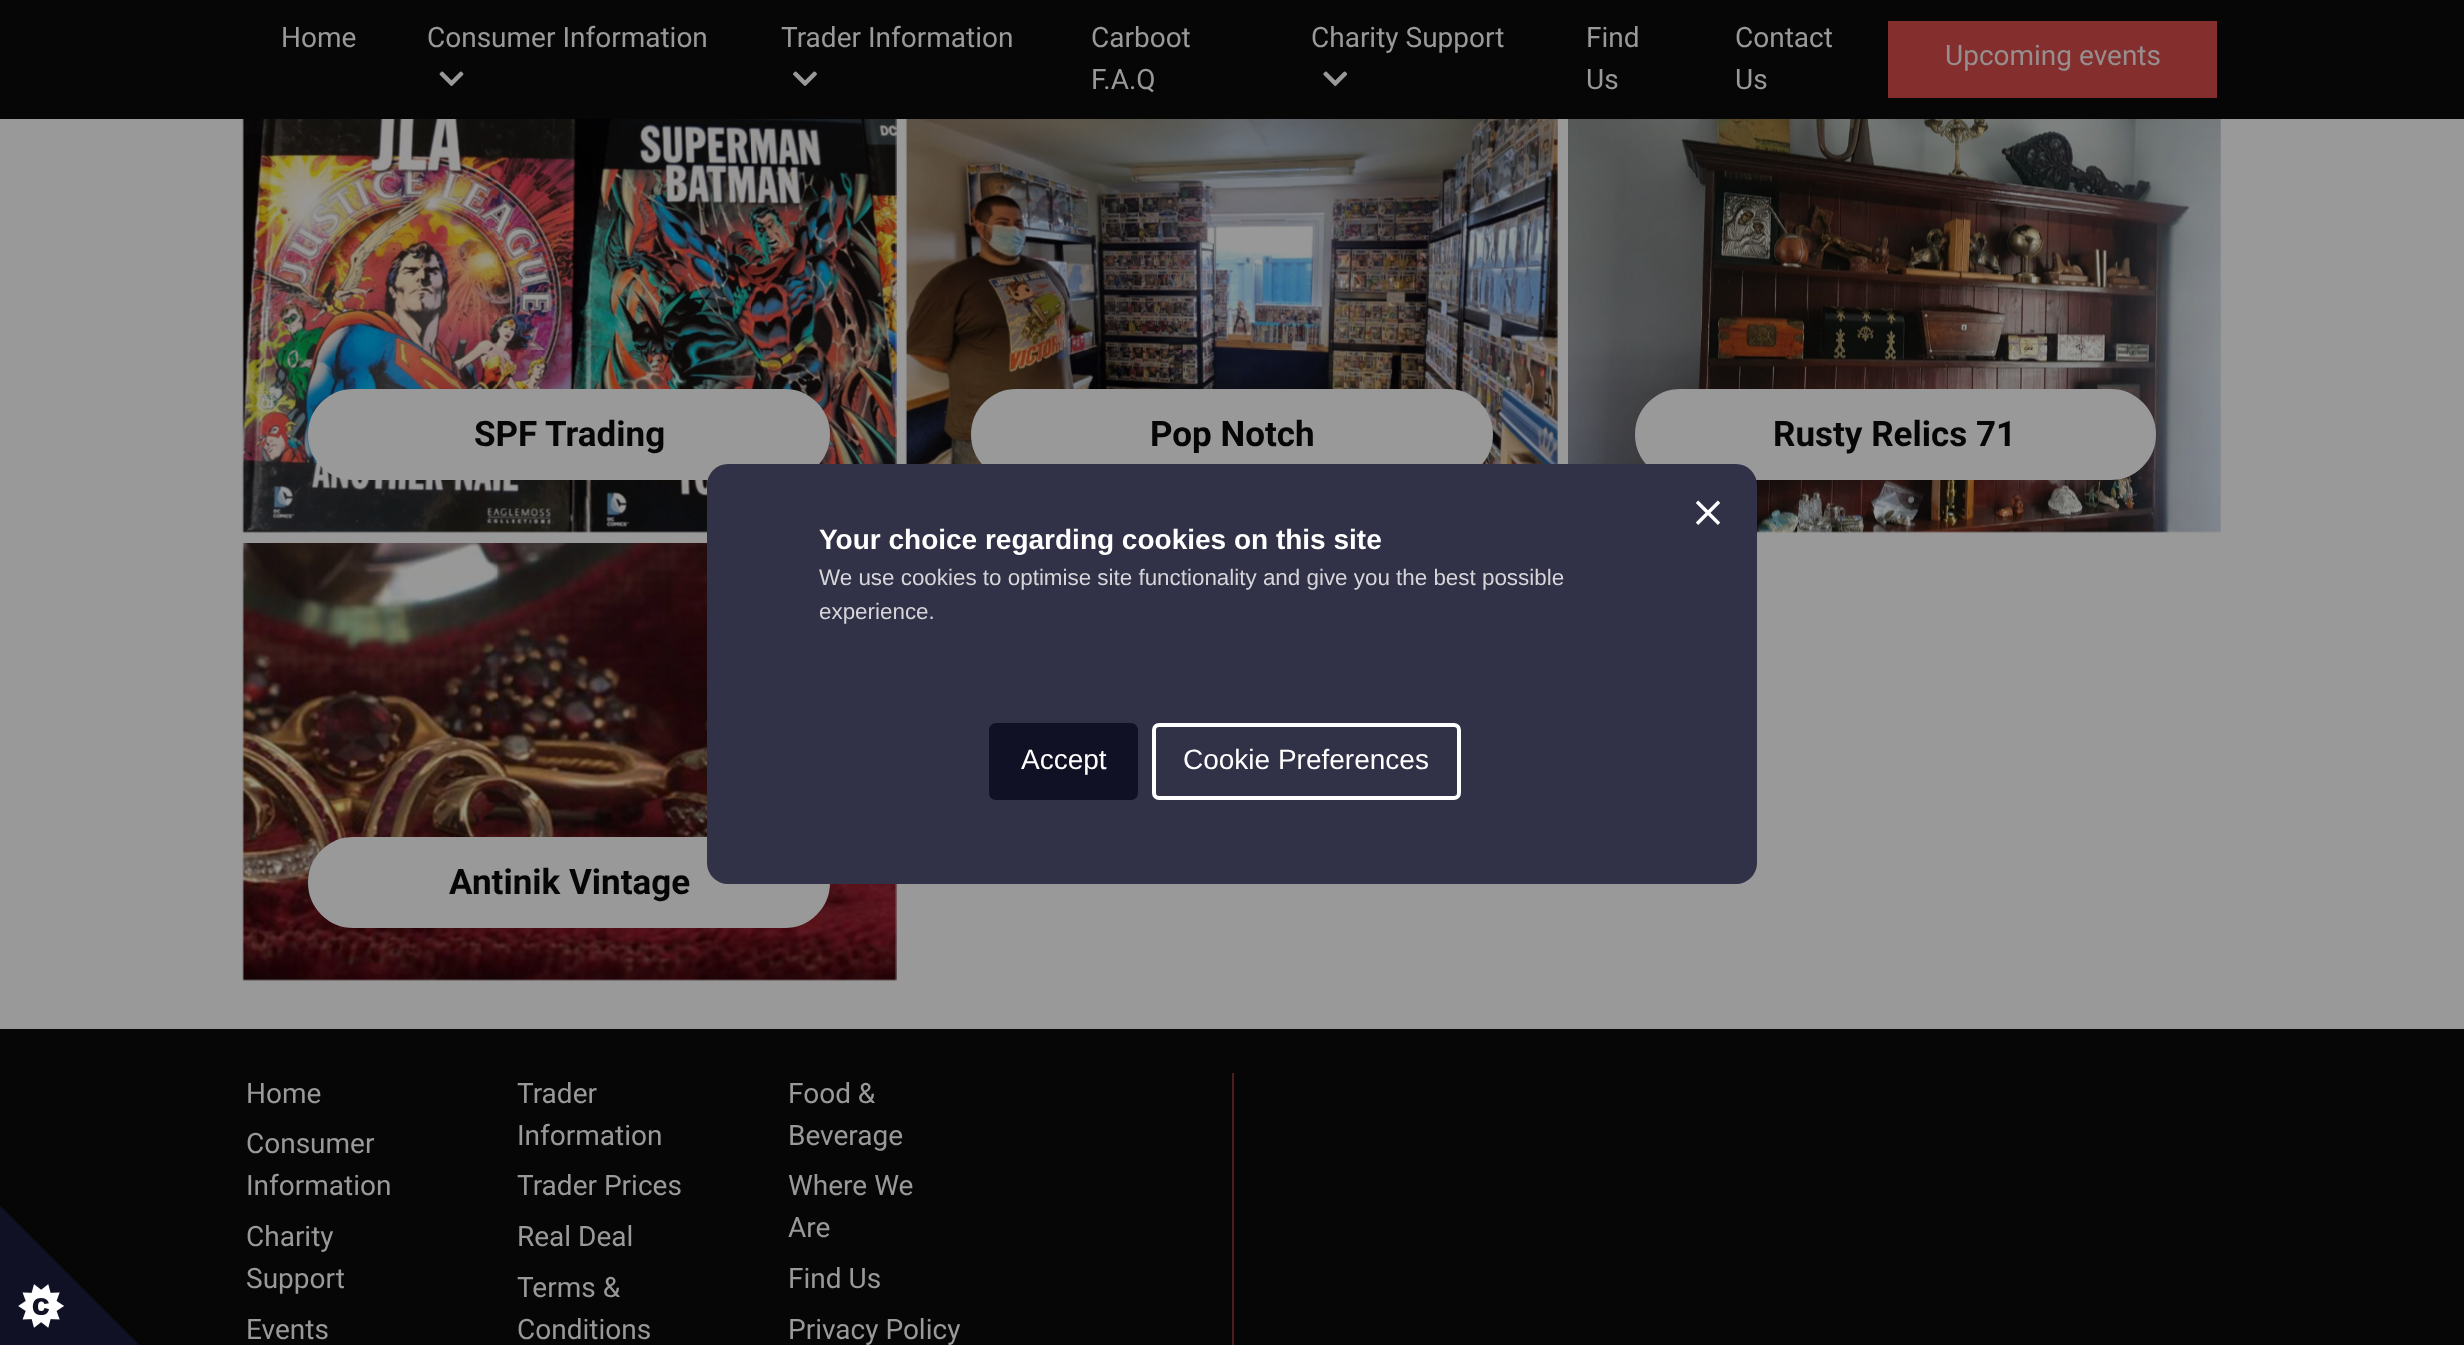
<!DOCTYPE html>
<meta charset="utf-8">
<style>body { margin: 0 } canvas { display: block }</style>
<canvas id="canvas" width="2464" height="1345"></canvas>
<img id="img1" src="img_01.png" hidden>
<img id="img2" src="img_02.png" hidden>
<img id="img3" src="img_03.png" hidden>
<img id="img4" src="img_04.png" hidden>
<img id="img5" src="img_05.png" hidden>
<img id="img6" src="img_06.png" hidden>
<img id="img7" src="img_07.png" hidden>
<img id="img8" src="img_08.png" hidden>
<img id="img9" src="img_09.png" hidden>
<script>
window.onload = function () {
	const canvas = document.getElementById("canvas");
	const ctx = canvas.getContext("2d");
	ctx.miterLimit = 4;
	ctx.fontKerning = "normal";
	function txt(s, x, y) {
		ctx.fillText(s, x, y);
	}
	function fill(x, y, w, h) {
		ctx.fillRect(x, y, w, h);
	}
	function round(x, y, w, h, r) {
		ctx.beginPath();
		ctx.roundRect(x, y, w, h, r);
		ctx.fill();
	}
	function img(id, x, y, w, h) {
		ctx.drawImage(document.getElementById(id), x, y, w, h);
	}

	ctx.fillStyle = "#999999";
	fill(0, 0, 2464, 1345);
	ctx.fillStyle = "#060606";
	fill(0, 0, 2464, 119);
	img("img1", 439, 71, 25, 15);
	img("img2", 793, 71, 24, 15);
	img("img3", 1323, 71, 25, 15);
	ctx.fillStyle = "#852E2E";
	fill(1888, 21, 329, 77);
	img("img4", 242, 119, 655, 414);
	ctx.fillStyle = "#999999";
	ctx.beginPath();
	ctx.roundRect(309, 390, 520, 89, 44.5);
	ctx.fill();
	ctx.strokeStyle = "#999999";
	ctx.lineWidth = 2;
	ctx.stroke();
	img("img5", 905, 119, 653, 345);
	ctx.beginPath();
	ctx.roundRect(972, 390, 520, 89, 44.5);
	ctx.fill();
	ctx.stroke();
	img("img6", 1568, 119, 653, 414);
	ctx.beginPath();
	ctx.roundRect(1636, 390, 519, 89, 44.5);
	ctx.fill();
	ctx.stroke();
	img("img7", 242, 543, 655, 438);
	ctx.beginPath();
	ctx.roundRect(309, 838, 520, 89, 44.5);
	ctx.fill();
	ctx.stroke();
	ctx.fillStyle = "#313147";
	round(707, 464, 1050, 420, 21);
	img("img8", 1695, 500, 26, 25);
	ctx.fillStyle = "#111125";
	ctx.beginPath();
	ctx.roundRect(991, 725, 145, 73, 5);
	ctx.fill();
	ctx.strokeStyle = "#111125";
	ctx.lineWidth = 4;
	ctx.stroke();
	ctx.beginPath();
	ctx.roundRect(1154, 725, 305, 73, 5);
	ctx.strokeStyle = "#FFFFFF";
	ctx.stroke();
	ctx.fillStyle = "#060606";
	fill(0, 1029, 2464, 316);
	img("img9", 0, 1206, 139, 139);
	ctx.fillStyle = "#4E1D1D";
	fill(1232, 1073, 2, 272);
	ctx.font = "28px Roboto";
	ctx.fillStyle = "#999999";
	txt("Home", 281, 47);
	txt("Consumer Information", 427, 47);
	txt("Trader Information", 781, 47);
	txt("Carboot", 1091, 47);
	txt("F.A.Q", 1091, 89);
	txt("Charity Support", 1311, 47);
	txt("Find", 1586, 47);
	txt("Us", 1586, 89);
	txt("Contact", 1735, 47);
	txt("Us", 1735, 89);
	ctx.fillStyle = "#978E8E";
	txt("Upcoming events", 1945, 65);
	ctx.font = "bold 35px Roboto";
	ctx.fillStyle = "#060606";
	txt("SPF Trading", 474, 446);
	txt("Pop Notch", 1150, 446);
	txt("Rusty Relics 71", 1773, 446);
	txt("Antinik Vintage", 449, 894);
	ctx.font = "bold 28px Liberation Sans";
	ctx.fillStyle = "#FFFFFF";
	txt("Your choice regarding cookies on this site", 819, 549);
	ctx.font = "22.4px Liberation Sans";
	ctx.fillStyle = "#D6D6DA";
	txt("We use cookies to optimise site functionality and give you the best possible", 819, 585);
	txt("experience.", 819, 619);
	ctx.font = "28px Liberation Sans";
	ctx.fillStyle = "#FFFFFF";
	txt("Accept", 1021, 769);
	txt("Cookie Preferences", 1183, 769);
	ctx.font = "28px Roboto";
	ctx.fillStyle = "#999999";
	txt("Home", 246, 1103);
	txt("Trader", 517, 1103);
	txt("Information", 517, 1145);
	txt("Food &", 788, 1103);
	txt("Beverage", 788, 1145);
	txt("Consumer", 246, 1153);
	txt("Information", 246, 1195);
	txt("Trader Prices", 517, 1195);
	txt("Where We", 788, 1195);
	txt("Are", 788, 1237);
	txt("Charity", 246, 1246);
	txt("Support", 246, 1288);
	txt("Real Deal", 517, 1246);
	txt("Terms &", 517, 1297);
	txt("Conditions", 517, 1339);
	txt("Find Us", 788, 1288);
	txt("Events", 246, 1339);
	txt("Privacy Policy", 788, 1339);
};
</script>
